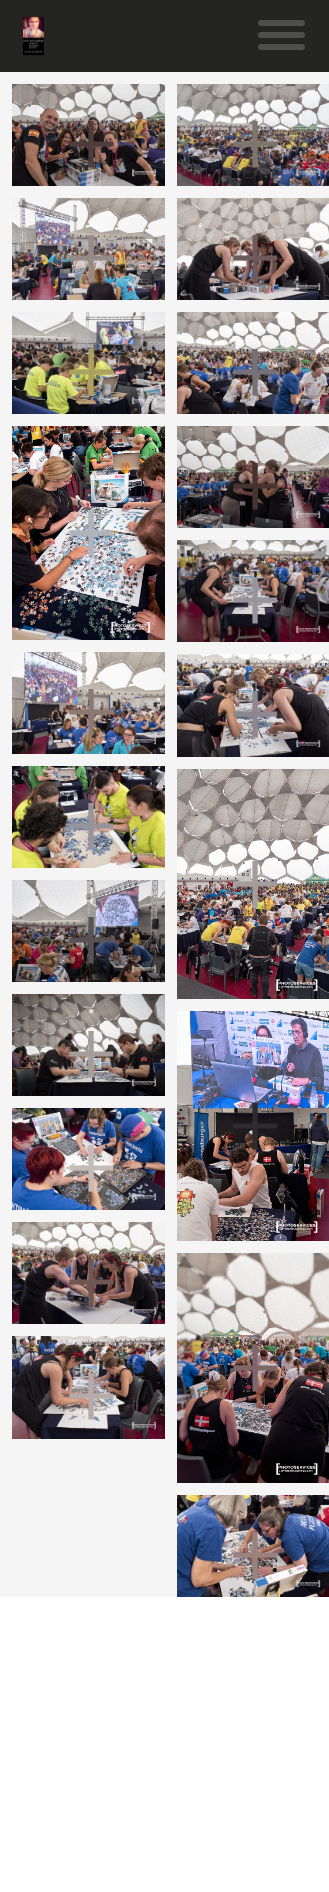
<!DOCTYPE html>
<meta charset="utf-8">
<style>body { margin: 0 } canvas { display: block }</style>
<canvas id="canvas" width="329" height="1892"></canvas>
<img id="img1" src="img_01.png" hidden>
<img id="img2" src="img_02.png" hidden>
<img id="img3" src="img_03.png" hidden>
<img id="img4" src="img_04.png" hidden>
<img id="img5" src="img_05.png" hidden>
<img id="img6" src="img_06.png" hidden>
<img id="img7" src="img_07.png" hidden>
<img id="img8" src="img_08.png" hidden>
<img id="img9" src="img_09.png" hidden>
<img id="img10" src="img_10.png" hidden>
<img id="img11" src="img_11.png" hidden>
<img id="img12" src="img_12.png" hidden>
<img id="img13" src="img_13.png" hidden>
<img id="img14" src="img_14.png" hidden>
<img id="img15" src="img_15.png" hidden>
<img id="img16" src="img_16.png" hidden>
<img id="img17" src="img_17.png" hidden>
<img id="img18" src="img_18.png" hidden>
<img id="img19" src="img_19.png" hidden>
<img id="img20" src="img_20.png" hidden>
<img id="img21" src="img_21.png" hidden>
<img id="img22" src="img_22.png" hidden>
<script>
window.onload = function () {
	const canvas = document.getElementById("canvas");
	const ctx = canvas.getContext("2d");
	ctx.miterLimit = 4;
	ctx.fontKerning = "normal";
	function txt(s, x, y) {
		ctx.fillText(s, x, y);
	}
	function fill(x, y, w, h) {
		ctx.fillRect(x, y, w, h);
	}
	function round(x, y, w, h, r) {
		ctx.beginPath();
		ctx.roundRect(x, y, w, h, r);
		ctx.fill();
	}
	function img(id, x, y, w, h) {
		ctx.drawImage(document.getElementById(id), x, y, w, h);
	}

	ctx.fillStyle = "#FFFFFF";
	fill(0, 0, 329, 1892);
	ctx.fillStyle = "#242423";
	fill(0, 0, 329, 72);
	img("img1", 23, 16, 21, 40);
	ctx.fillStyle = "#4E4E4D";
	round(258, 32, 47, 6, 3);
	round(258, 20, 47, 6, 3);
	round(258, 44, 47, 6, 3);
	ctx.fillStyle = "#F5F5F5";
	fill(0, 72, 329, 1525);
	img("img2", 12, 84, 153, 102);
	img("img3", 12, 198, 153, 102);
	img("img4", 12, 312, 153, 102);
	img("img5", 12, 426, 153, 214);
	img("img6", 12, 652, 153, 102);
	img("img7", 12, 766, 153, 102);
	img("img8", 12, 880, 153, 102);
	img("img9", 12, 994, 153, 102);
	img("img10", 12, 1108, 153, 102);
	img("img11", 12, 1222, 153, 102);
	img("img12", 12, 1336, 153, 103);
	img("img13", 177, 84, 152, 102);
	img("img14", 177, 198, 152, 102);
	img("img15", 177, 312, 152, 102);
	img("img16", 177, 426, 152, 102);
	img("img17", 177, 540, 152, 102);
	img("img18", 177, 654, 152, 103);
	img("img19", 177, 769, 152, 230);
	img("img20", 177, 1011, 152, 230);
	img("img21", 177, 1253, 152, 230);
	img("img22", 177, 1495, 152, 102);
	ctx.letterSpacing = "-5px";
	ctx.font = "300 90px Roboto";
	ctx.fillStyle = "#4F3D3B";
	txt("+", 66, 174);
	ctx.fillStyle = "#978B88";
	txt("+", 66, 288);
	ctx.fillStyle = "#ABA161";
	txt("+", 66, 402);
	ctx.fillStyle = "#AFB3BC";
	txt("+", 66, 563);
	ctx.fillStyle = "#8C7972";
	txt("+", 66, 742);
	ctx.fillStyle = "#97949C";
	txt("+", 66, 856);
	ctx.fillStyle = "#585254";
	txt("+", 66, 970);
	ctx.fillStyle = "#A59D9A";
	txt("+", 66, 1084);
	ctx.fillStyle = "#C5BBB9";
	txt("+", 66, 1198);
	ctx.fillStyle = "#715753";
	txt("+", 66, 1312);
	ctx.fillStyle = "#B7ABAA";
	txt("+", 66, 1426);
	ctx.fillStyle = "#7E766C";
	txt("+", 230, 174);
	ctx.fillStyle = "#6D5B5C";
	txt("+", 230, 288);
	ctx.fillStyle = "#74717A";
	txt("+", 230, 402);
	ctx.fillStyle = "#473330";
	txt("+", 230, 516);
	ctx.fillStyle = "#97949C";
	txt("+", 230, 630);
	ctx.fillStyle = "#8F878E";
	txt("+", 230, 744);
	ctx.fillStyle = "#A59D9A";
	txt("+", 230, 914);
	ctx.fillStyle = "#2E2A2E";
	txt("+", 230, 1156);
	ctx.fillStyle = "#7E6669";
	txt("+", 230, 1398);
	ctx.fillStyle = "#99827E";
	txt("+", 230, 1585);
};
</script>
